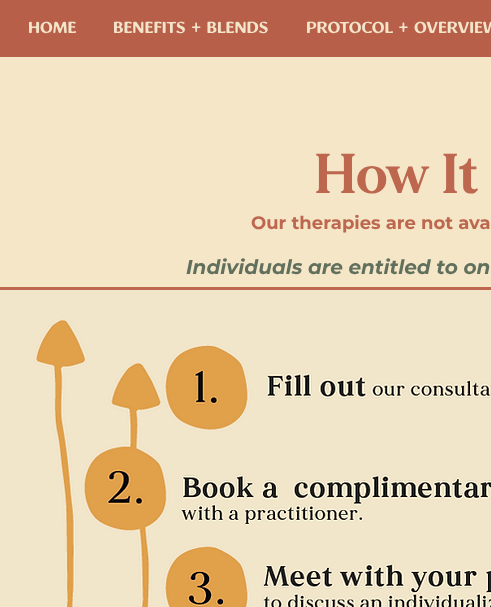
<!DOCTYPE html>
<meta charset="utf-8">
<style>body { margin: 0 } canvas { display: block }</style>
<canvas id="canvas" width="491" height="607"></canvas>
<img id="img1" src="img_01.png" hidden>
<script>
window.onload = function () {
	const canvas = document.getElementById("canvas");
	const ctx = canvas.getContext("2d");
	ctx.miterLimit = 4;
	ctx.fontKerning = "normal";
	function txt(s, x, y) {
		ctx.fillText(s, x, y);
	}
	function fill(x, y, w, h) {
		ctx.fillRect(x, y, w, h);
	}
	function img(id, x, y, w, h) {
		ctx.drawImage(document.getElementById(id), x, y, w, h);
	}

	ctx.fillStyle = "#F5E6C8";
	fill(0, 0, 491, 607);
	ctx.fillStyle = "#B85F4A";
	fill(0, 0, 491, 57);
	ctx.fillStyle = "#BD674F";
	fill(0, 287, 491, 3);
	img("img1", 0, 290, 491, 317);
	ctx.font = "16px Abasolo";
	ctx.fillStyle = "#F3E5CA";
	txt("Home", 28, 33);
	txt("Benefits + Blends", 113, 33);
	txt("Protocol + Overview", 306, 33);
	ctx.font = "bold 56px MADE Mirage";
	ctx.fillStyle = "#BD674F";
	txt("How It", 314, 193);
	ctx.font = "bold 18px Montserrat";
	txt("Our therapies are not ava", 251, 229);
	ctx.font = "italic bold 20px Montserrat";
	ctx.fillStyle = "#616F5D";
	txt("Individuals are entitled to on", 186, 274);
};
</script>
